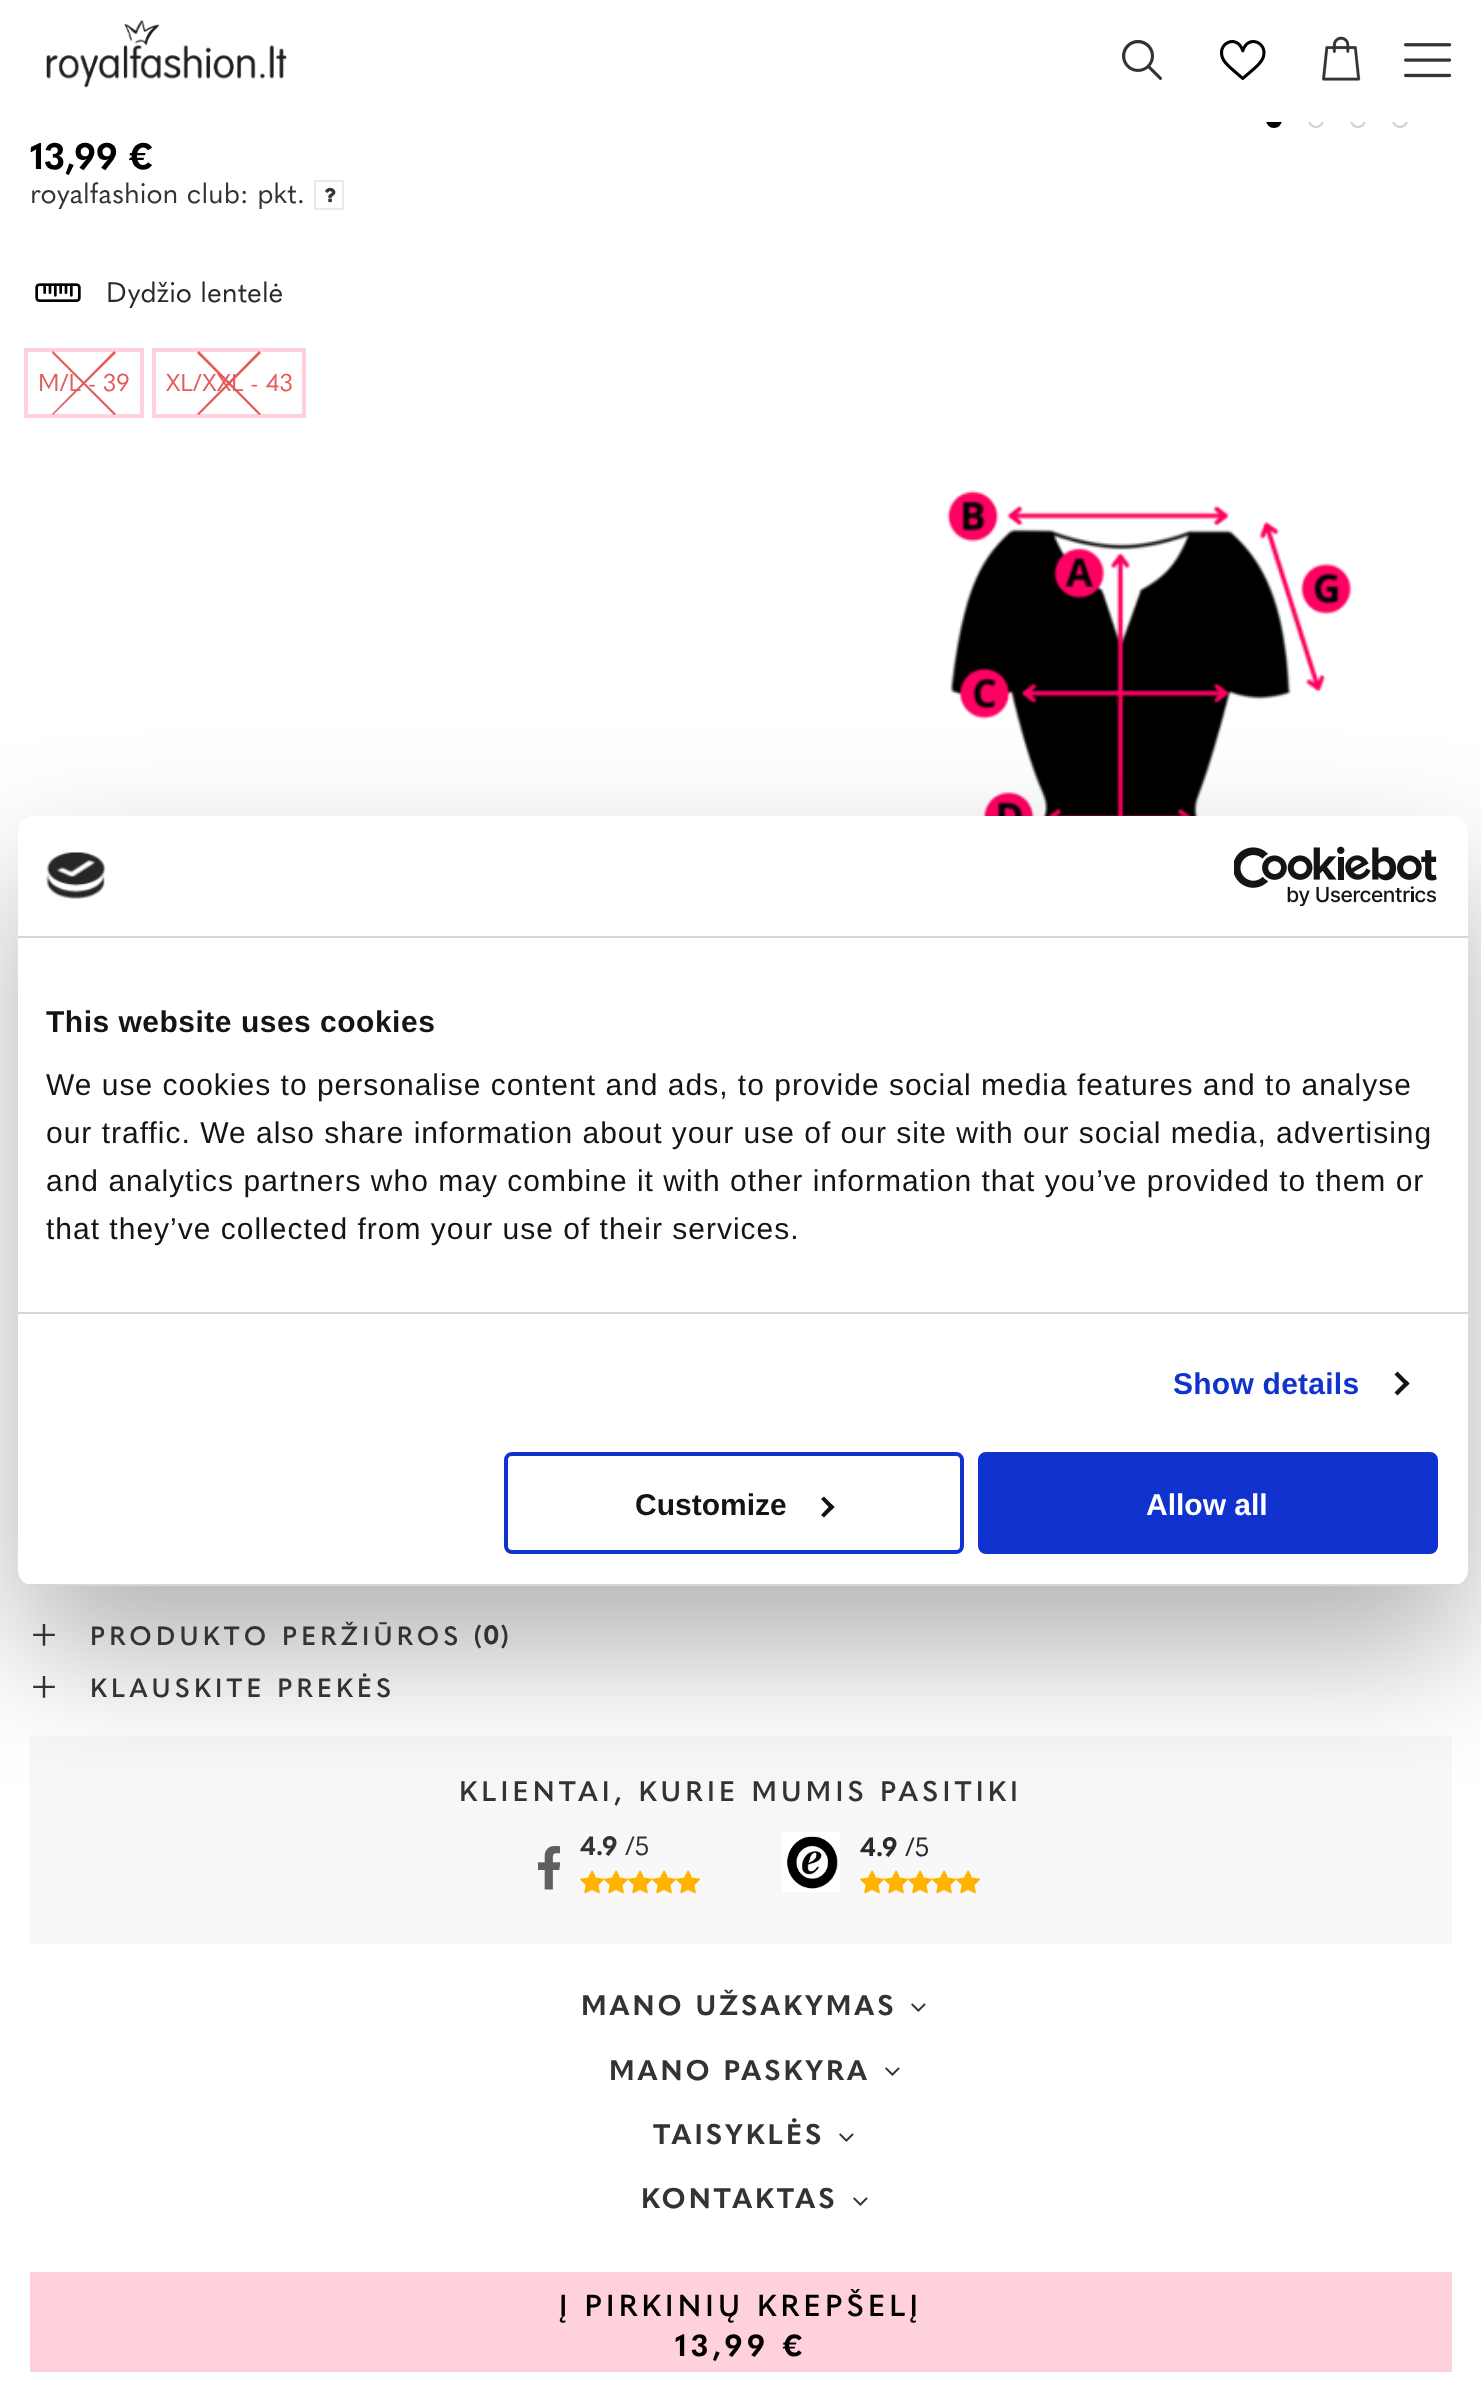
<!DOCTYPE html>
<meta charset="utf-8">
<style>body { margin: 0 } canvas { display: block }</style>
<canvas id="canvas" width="1481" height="2401"></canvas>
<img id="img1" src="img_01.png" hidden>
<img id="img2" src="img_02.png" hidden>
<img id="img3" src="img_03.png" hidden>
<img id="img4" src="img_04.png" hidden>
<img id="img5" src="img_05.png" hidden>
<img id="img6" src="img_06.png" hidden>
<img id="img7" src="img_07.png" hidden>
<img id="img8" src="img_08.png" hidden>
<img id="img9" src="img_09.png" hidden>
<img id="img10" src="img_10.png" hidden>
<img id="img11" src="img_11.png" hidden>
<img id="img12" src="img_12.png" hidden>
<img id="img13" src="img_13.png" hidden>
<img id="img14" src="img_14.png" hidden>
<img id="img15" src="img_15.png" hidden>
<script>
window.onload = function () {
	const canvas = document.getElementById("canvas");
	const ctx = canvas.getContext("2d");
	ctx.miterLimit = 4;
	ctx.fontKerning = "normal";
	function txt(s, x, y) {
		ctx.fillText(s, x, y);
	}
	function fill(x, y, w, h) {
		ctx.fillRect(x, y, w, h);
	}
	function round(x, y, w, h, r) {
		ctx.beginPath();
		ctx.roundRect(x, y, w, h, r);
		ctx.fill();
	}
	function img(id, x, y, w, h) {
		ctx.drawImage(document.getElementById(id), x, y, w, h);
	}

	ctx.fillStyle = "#FFFFFF";
	fill(0, 0, 1481, 2401);
	ctx.fillStyle = "#000000";
	ctx.beginPath();
	ctx.arc(1274, 120, 8, 0, Math.PI * 2);
	ctx.fill();
	ctx.beginPath();
	ctx.arc(1316, 120, 7, 0, Math.PI * 2);
	ctx.strokeStyle = "#D0D0D0";
	ctx.lineWidth = 2;
	ctx.stroke();
	ctx.beginPath();
	ctx.arc(1358, 120, 7, 0, Math.PI * 2);
	ctx.stroke();
	ctx.beginPath();
	ctx.arc(1400, 120, 7, 0, Math.PI * 2);
	ctx.stroke();
	ctx.fillStyle = "#FFFFFF";
	fill(1266, 112, 142, 10);
	img("img1", 46, 20, 241, 68);
	img("img2", 1122, 39, 40, 41);
	img("img3", 1220, 40, 46, 40);
	img("img4", 1322, 36, 39, 45);
	img("img5", 1404, 43, 48, 35);
	ctx.strokeStyle = "#EAEAEA";
	ctx.strokeRect(315, 181, 28, 28);
	img("img6", 325, 187, 11, 16);
	img("img7", 35, 283, 46, 19);
	ctx.strokeStyle = "#FFD1DC";
	ctx.lineWidth = 4;
	ctx.strokeRect(26, 350, 116, 66);
	ctx.fillStyle = "#E35C5C";
	ctx.beginPath();
	ctx.moveTo(53, 351);
	ctx.lineTo(116, 414);
	ctx.lineTo(114, 415);
	ctx.lineTo(52, 353);
	ctx.closePath();
	ctx.fill();
	ctx.beginPath();
	ctx.moveTo(52, 414);
	ctx.lineTo(114, 351);
	ctx.lineTo(116, 353);
	ctx.lineTo(53, 415);
	ctx.closePath();
	ctx.fill();
	ctx.strokeRect(154, 350, 150, 66);
	ctx.beginPath();
	ctx.moveTo(199, 351);
	ctx.lineTo(261, 414);
	ctx.lineTo(259, 415);
	ctx.lineTo(197, 353);
	ctx.closePath();
	ctx.fill();
	ctx.beginPath();
	ctx.moveTo(197, 414);
	ctx.lineTo(259, 351);
	ctx.lineTo(261, 353);
	ctx.lineTo(199, 415);
	ctx.closePath();
	ctx.fill();
	img("img8", 783, 490, 625, 326);
	ctx.fillStyle = "#FFD1DC";
	fill(30, 2272, 1422, 100);
	ctx.fillStyle = "#F8F8F8";
	fill(30, 1736, 1422, 208);
	img("img9", 538, 1846, 22, 44);
	img("img10", 580, 1870, 25, 24);
	img("img11", 604, 1870, 25, 24);
	img("img11", 628, 1870, 25, 24);
	img("img11", 652, 1870, 25, 24);
	img("img11", 676, 1870, 25, 24);
	img("img12", 782, 1832, 58, 60);
	img("img10", 860, 1870, 25, 24);
	img("img11", 884, 1870, 25, 24);
	img("img11", 908, 1870, 25, 24);
	img("img11", 932, 1870, 25, 24);
	img("img11", 956, 1870, 25, 24);
	ctx.fillStyle = "rgba(0, 0, 0, 0.3)";
	ctx.filter = "blur(68px)";
	ctx.beginPath();
	ctx.roundRect(18, 880, 1450, 770, 16);
	ctx.fill();
	ctx.filter = "none";
	ctx.fillStyle = "#FFFFFF";
	round(18, 816, 1450, 770, 16);
	ctx.fillStyle = "#D6D6D6";
	fill(18, 936, 1450, 2);
	img("img13", 46, 852, 60, 47);
	img("img14", 1234, 846, 203, 60);
	fill(18, 1312, 1450, 2);
	ctx.fillStyle = "#141414";
	ctx.beginPath();
	ctx.moveTo(1397.5, 1371.5);
	ctx.lineTo(1409.5, 1383.5);
	ctx.lineTo(1406.5, 1386.5);
	ctx.lineTo(1394.5, 1374.5);
	ctx.closePath();
	ctx.fill();
	ctx.beginPath();
	ctx.moveTo(1406.5, 1380.5);
	ctx.lineTo(1409.5, 1383.5);
	ctx.lineTo(1397.5, 1395.5);
	ctx.lineTo(1394.5, 1392.5);
	ctx.closePath();
	ctx.fill();
	ctx.save();
	ctx.beginPath();
	ctx.roundRect(18, 816, 1450, 770, 16);
	ctx.clip();
	ctx.fillStyle = "#D6D6D6";
	fill(18, 1584, 1450, 2);
	ctx.restore();
	ctx.beginPath();
	ctx.roundRect(506, 1454, 456, 98, 6);
	ctx.strokeStyle = "#1032CF";
	ctx.stroke();
	ctx.beginPath();
	ctx.moveTo(824, 1496.5);
	ctx.lineTo(834.5, 1507);
	ctx.lineTo(831.5, 1510);
	ctx.lineTo(821, 1499);
	ctx.closePath();
	ctx.fill();
	ctx.beginPath();
	ctx.moveTo(831.5, 1504);
	ctx.lineTo(834.5, 1507);
	ctx.lineTo(824, 1517.5);
	ctx.lineTo(821, 1515);
	ctx.closePath();
	ctx.fill();
	ctx.fillStyle = "#1032CF";
	ctx.beginPath();
	ctx.roundRect(980, 1454, 456, 98, 6);
	ctx.fill();
	ctx.stroke();
	img("img15", 911, 2003, 15, 9);
	img("img15", 885, 2067, 15, 9);
	img("img15", 839, 2133, 15, 9);
	img("img15", 853, 2197, 15, 9);
	ctx.font = "bold 36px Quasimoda";
	ctx.fillStyle = "#000000";
	txt("13,99 €", 30, 169);
	ctx.font = "28px Quasimoda";
	ctx.fillStyle = "#333333";
	txt("royalfashion club: pkt.", 30, 203);
	ctx.fillStyle = "#292929";
	txt("Dydžio lentelė", 106, 302);
	ctx.font = "24px Quasimoda";
	ctx.fillStyle = "#E35C5C";
	txt("M/L - 39", 38, 391);
	txt("XL/XXL - 43", 166, 391);
	ctx.letterSpacing = "4.2px";
	ctx.font = "600 30px Quasimoda";
	ctx.fillStyle = "#000000";
	txt("Į PIRKINIŲ KREPŠELĮ", 559, 2316);
	ctx.font = "bold 30px Quasimoda";
	txt("13,99 €", 675, 2356);
	ctx.letterSpacing = "0px";
	ctx.font = "40px Quasimoda";
	ctx.fillStyle = "#333333";
	txt("+", 30, 1647);
	ctx.letterSpacing = "4.2px";
	ctx.font = "600 26px Quasimoda";
	txt("PRODUKTO PERŽIŪROS", 90, 1645);
	ctx.letterSpacing = "0px";
	ctx.font = "bold 26px Quasimoda";
	txt("(0)", 474, 1644);
	ctx.font = "40px Quasimoda";
	txt("+", 30, 1699);
	ctx.letterSpacing = "4.2px";
	ctx.font = "600 26px Quasimoda";
	txt("KLAUSKITE PREKĖS", 90, 1697);
	ctx.font = "600 28px Quasimoda";
	txt("KLIENTAI, KURIE MUMIS PASITIKI", 459, 1801);
	ctx.letterSpacing = "0px";
	ctx.font = "bold 26px Quasimoda";
	txt("4.9", 580, 1855);
	ctx.font = "26px Quasimoda";
	txt("/5", 625, 1855);
	ctx.font = "bold 26px Quasimoda";
	ctx.fillStyle = "#292929";
	txt("4.9", 860, 1856);
	ctx.font = "26px Quasimoda";
	txt("/5", 905, 1856);
	ctx.letterSpacing = "0.5px";
	ctx.font = "bold 30px Liberation Sans";
	ctx.fillStyle = "#141414";
	txt("This website uses cookies", 46, 1032);
	ctx.letterSpacing = "1px";
	ctx.font = "30px Liberation Sans";
	txt("We use cookies to personalise content and ads, to provide social media features and to analyse", 46, 1095);
	txt("our traffic. We also share information about your use of our site with our social media, advertising", 46, 1143);
	txt("and analytics partners who may combine it with other information that you’ve provided to them or", 46, 1191);
	txt("that they’ve collected from your use of their services.", 46, 1239);
	ctx.letterSpacing = "0.25px";
	ctx.font = "bold 30px Liberation Sans";
	ctx.fillStyle = "#1032CF";
	txt("Show details", 1173, 1394);
	ctx.letterSpacing = "0px";
	ctx.fillStyle = "#141414";
	txt("Customize", 635, 1515);
	ctx.fillStyle = "#FFFFFF";
	txt("Allow all", 1146, 1515);
	ctx.letterSpacing = "3px";
	ctx.font = "bold 28px Quasimoda";
	ctx.fillStyle = "#333333";
	txt("MANO UŽSAKYMAS", 581, 2015);
	txt("MANO PASKYRA", 609, 2080);
	txt("TAISYKLĖS", 653, 2144);
	txt("KONTAKTAS", 641, 2208);
};
</script>
